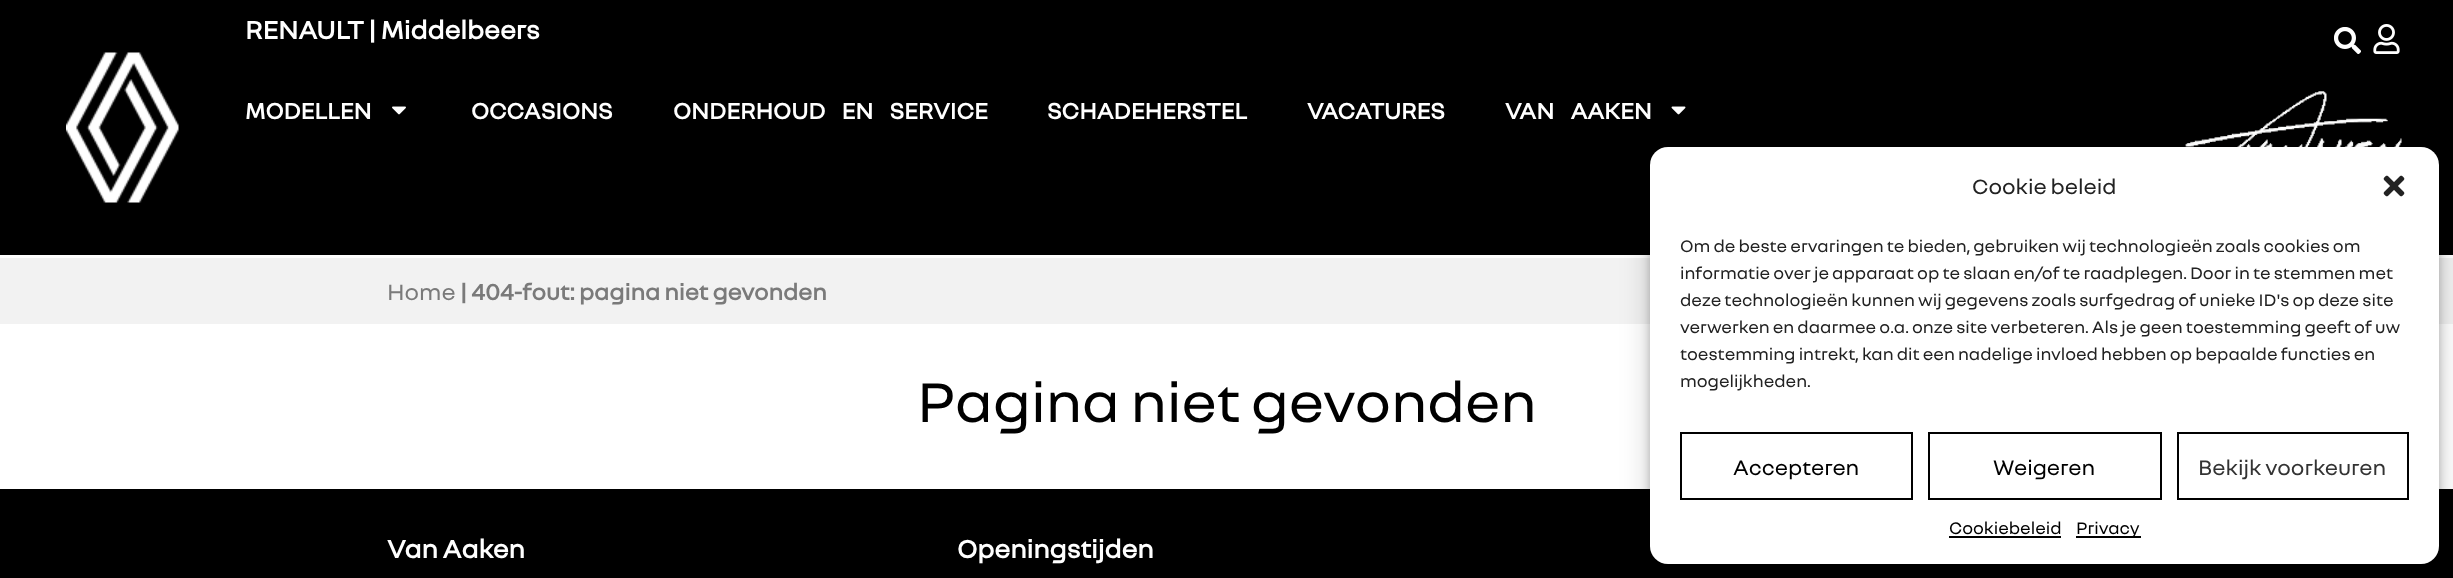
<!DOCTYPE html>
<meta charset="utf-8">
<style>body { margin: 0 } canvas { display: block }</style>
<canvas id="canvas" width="2453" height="578"></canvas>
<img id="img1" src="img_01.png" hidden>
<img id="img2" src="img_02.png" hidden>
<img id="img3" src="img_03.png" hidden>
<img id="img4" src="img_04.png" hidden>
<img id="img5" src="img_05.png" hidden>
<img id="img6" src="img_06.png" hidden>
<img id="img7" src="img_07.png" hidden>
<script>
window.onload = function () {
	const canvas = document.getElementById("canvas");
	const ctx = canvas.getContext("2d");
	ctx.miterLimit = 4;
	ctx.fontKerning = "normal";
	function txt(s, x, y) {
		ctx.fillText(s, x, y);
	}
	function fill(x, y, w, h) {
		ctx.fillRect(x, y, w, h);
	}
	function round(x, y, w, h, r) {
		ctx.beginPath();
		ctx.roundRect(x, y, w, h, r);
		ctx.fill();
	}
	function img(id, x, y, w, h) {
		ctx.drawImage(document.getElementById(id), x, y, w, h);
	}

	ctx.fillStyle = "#FFFFFF";
	fill(0, 0, 2453, 578);
	ctx.fillStyle = "#000000";
	fill(0, 0, 2453, 255);
	img("img1", 66, 52, 113, 151);
	img("img2", 392, 106, 14, 9);
	img("img3", 1671, 106, 15, 9);
	img("img4", 2334, 27, 27, 27);
	img("img5", 2373, 24, 27, 30);
	img("img6", 2185, 91, 217, 56);
	ctx.fillStyle = "#F2F2F2";
	fill(0, 258, 2453, 66);
	ctx.fillStyle = "#000000";
	fill(0, 489, 2453, 89);
	ctx.fillStyle = "rgba(0, 0, 0, 0.23)";
	ctx.filter = "blur(4.5px)";
	ctx.beginPath();
	ctx.roundRect(1650, 156, 789, 417, 18);
	ctx.fill();
	ctx.filter = "none";
	ctx.fillStyle = "rgba(0, 0, 0, 0.19)";
	ctx.filter = "blur(15px)";
	ctx.beginPath();
	ctx.roundRect(1650, 162, 789, 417, 18);
	ctx.fill();
	ctx.filter = "none";
	ctx.fillStyle = "#FFFFFF";
	round(1650, 147, 789, 417, 18);
	img("img7", 2383, 175, 22, 22);
	ctx.strokeStyle = "#000000";
	ctx.lineWidth = 2;
	ctx.strokeRect(1681, 433, 231, 66);
	ctx.strokeRect(1929, 433, 232, 66);
	ctx.strokeRect(2178, 433, 230, 66);
	ctx.fillStyle = "#000000";
	fill(1949, 536, 112, 2);
	fill(2076, 536, 65, 2);
	ctx.font = "bold 27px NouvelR";
	ctx.fillStyle = "#FFFFFF";
	txt("RENAULT | Middelbeers", 245, 39);
	ctx.font = "bold 24px NouvelR";
	txt("MODELLEN", 245, 119);
	txt("OCCASIONS", 471, 119);
	ctx.wordSpacing = "12px";
	txt("ONDERHOUD EN SERVICE", 673, 119);
	ctx.wordSpacing = "0px";
	txt("SCHADEHERSTEL", 1047, 119);
	txt("VACATURES", 1307, 119);
	ctx.wordSpacing = "12px";
	txt("VAN AAKEN", 1505, 119);
	ctx.wordSpacing = "0px";
	ctx.font = "24px NouvelR";
	ctx.fillStyle = "#7A7A7A";
	txt("Home", 387, 300);
	ctx.font = "bold 24px NouvelR";
	txt("| 404-fout: pagina niet gevonden", 460, 300);
	ctx.font = "60px NouvelR";
	ctx.fillStyle = "#000000";
	txt("Pagina niet gevonden", 917, 422);
	ctx.font = "22.5px NouvelR";
	ctx.fillStyle = "#222222";
	txt("Cookie beleid", 1972, 194);
	ctx.font = "18px NouvelR";
	txt("Om de beste ervaringen te bieden, gebruiken wij technologieën zoals cookies om", 1680, 252);
	txt("informatie over je apparaat op te slaan en/of te raadplegen. Door in te stemmen met", 1680, 279);
	txt("deze technologieën kunnen wij gegevens zoals surfgedrag of unieke ID's op deze site", 1680, 306);
	txt("verwerken en daarmee o.a. onze site verbeteren. Als je geen toestemming geeft of uw", 1680, 333);
	txt("toestemming intrekt, kan dit een nadelige invloed hebben op bepaalde functies en", 1680, 360);
	txt("mogelijkheden.", 1680, 387);
	ctx.font = "22.5px NouvelR";
	ctx.fillStyle = "#000000";
	txt("Accepteren", 1733, 475);
	txt("Weigeren", 1993, 475);
	ctx.fillStyle = "#333333";
	txt("Bekijk voorkeuren", 2198, 475);
	ctx.font = "18px NouvelR";
	ctx.fillStyle = "#000000";
	txt("Cookiebeleid", 1949, 534);
	txt("Privacy", 2076, 534);
	ctx.font = "bold 27px NouvelR";
	ctx.fillStyle = "#FFFFFF";
	txt("Van Aaken", 387, 558);
	txt("Openingstijden", 957, 558);
};
</script>
